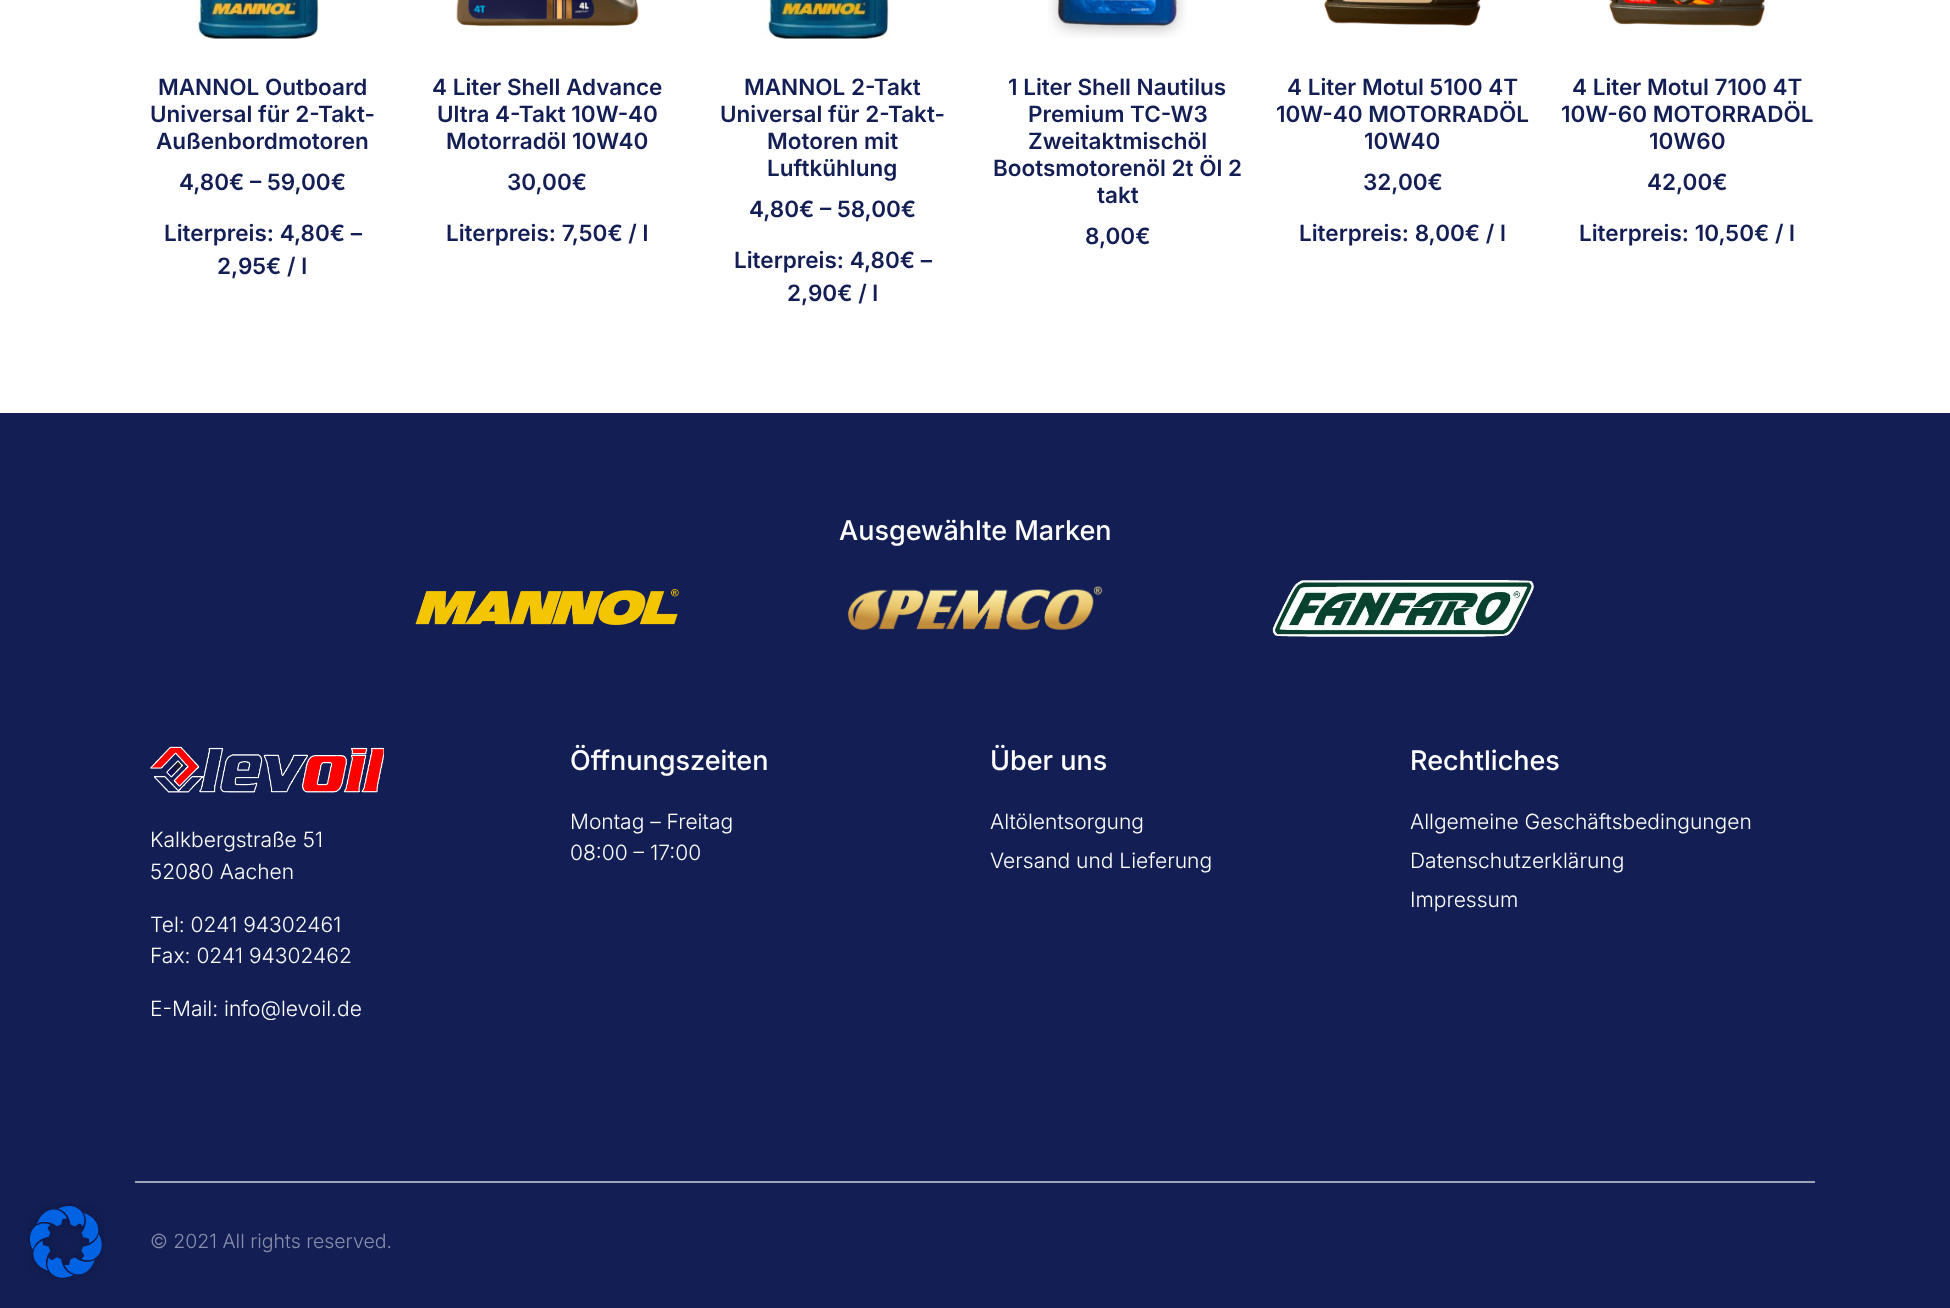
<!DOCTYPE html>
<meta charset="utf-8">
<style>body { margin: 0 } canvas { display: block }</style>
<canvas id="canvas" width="1950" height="1308"></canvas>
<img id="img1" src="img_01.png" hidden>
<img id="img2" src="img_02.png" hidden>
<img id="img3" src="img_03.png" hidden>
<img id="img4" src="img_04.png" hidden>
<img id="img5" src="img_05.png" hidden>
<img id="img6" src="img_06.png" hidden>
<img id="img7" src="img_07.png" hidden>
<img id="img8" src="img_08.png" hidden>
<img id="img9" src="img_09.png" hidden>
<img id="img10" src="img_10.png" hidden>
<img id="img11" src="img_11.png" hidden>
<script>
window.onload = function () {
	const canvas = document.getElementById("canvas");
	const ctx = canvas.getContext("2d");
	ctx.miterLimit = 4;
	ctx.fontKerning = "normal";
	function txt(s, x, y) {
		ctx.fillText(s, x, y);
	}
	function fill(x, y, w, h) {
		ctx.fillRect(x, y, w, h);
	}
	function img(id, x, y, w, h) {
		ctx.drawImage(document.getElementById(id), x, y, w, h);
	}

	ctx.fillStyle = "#FFFFFF";
	fill(0, 0, 1950, 1308);
	img("img1", 192, 0, 129, 39);
	img("img2", 456, 0, 183, 27);
	img("img3", 760, 0, 131, 39);
	img("img4", 1048, 0, 139, 38);
	img("img5", 1324, 0, 157, 26);
	img("img6", 1609, 0, 156, 27);
	ctx.fillStyle = "#131E54";
	fill(0, 413, 1950, 895);
	img("img7", 27, 1203, 78, 78);
	img("img8", 415, 589, 264, 36);
	img("img9", 847, 585, 256, 45);
	img("img10", 1272, 580, 262, 57);
	img("img11", 150, 746, 234, 47);
	ctx.fillStyle = "#9EA3B9";
	fill(135, 1181, 1680, 2);
	ctx.font = "600 22.5px Inter";
	ctx.fillStyle = "#131E54";
	txt("MANNOL Outboard", 158, 95);
	txt("Universal für 2-Takt-", 150, 122);
	txt("Außenbordmotoren", 156, 149);
	txt("4,80€ – 59,00€", 179, 190);
	txt("Literpreis: 4,80€ –", 164, 241);
	txt("2,95€ / l", 217, 274);
	txt("4 Liter Shell Advance", 432, 95);
	txt("Ultra 4-Takt 10W-40", 437, 122);
	txt("Motorradöl 10W40", 446, 149);
	txt("30,00€", 507, 190);
	txt("Literpreis: 7,50€ / l", 446, 241);
	txt("MANNOL 2-Takt", 744, 95);
	txt("Universal für 2-Takt-", 720, 122);
	txt("Motoren mit", 767, 149);
	txt("Luftkühlung", 767, 176);
	txt("4,80€ – 58,00€", 749, 217);
	txt("Literpreis: 4,80€ –", 734, 268);
	txt("2,90€ / l", 787, 301);
	txt("1 Liter Shell Nautilus", 1008, 95);
	txt("Premium TC-W3", 1028, 122);
	txt("Zweitaktmischöl", 1028, 149);
	txt("Bootsmotorenöl 2t Öl 2", 993, 176);
	txt("takt", 1097, 203);
	txt("8,00€", 1085, 244);
	txt("4 Liter Motul 5100 4T", 1287, 95);
	txt("10W-40 MOTORRADÖL", 1276, 122);
	txt("10W40", 1364, 149);
	txt("32,00€", 1363, 190);
	txt("Literpreis: 8,00€ / l", 1299, 241);
	txt("4 Liter Motul 7100 4T", 1572, 95);
	txt("10W-60 MOTORRADÖL", 1561, 122);
	txt("10W60", 1649, 149);
	txt("42,00€", 1647, 190);
	txt("Literpreis: 10,50€ / l", 1579, 241);
	ctx.font = "500 27px Inter";
	ctx.fillStyle = "#FFFFFF";
	txt("Ausgewählte Marken", 839, 540);
	ctx.font = "300 21px Inter";
	txt("Kalkbergstraße 51", 150, 847);
	txt("52080 Aachen", 150, 879);
	txt("Tel: 0241 94302461", 150, 932);
	txt("Fax: 0241 94302462", 150, 963);
	txt("E-Mail: info@levoil.de", 150, 1016);
	ctx.font = "500 27px Inter";
	txt("Öffnungszeiten", 570, 770);
	ctx.font = "300 21px Inter";
	txt("Montag – Freitag", 570, 829);
	txt("08:00 – 17:00", 570, 860);
	ctx.font = "500 27px Inter";
	txt("Über uns", 990, 770);
	ctx.font = "300 21px Inter";
	txt("Altölentsorgung", 990, 829);
	txt("Versand und Lieferung", 990, 868);
	ctx.font = "500 27px Inter";
	txt("Rechtliches", 1410, 770);
	ctx.font = "300 21px Inter";
	txt("Allgemeine Geschäftsbedingungen", 1410, 829);
	txt("Datenschutzerklärung", 1410, 868);
	txt("Impressum", 1410, 907);
	ctx.font = "300 19.5px Inter";
	ctx.fillStyle = "#898FAA";
	txt("© 2021 All rights reserved.", 150, 1248);
};
</script>
